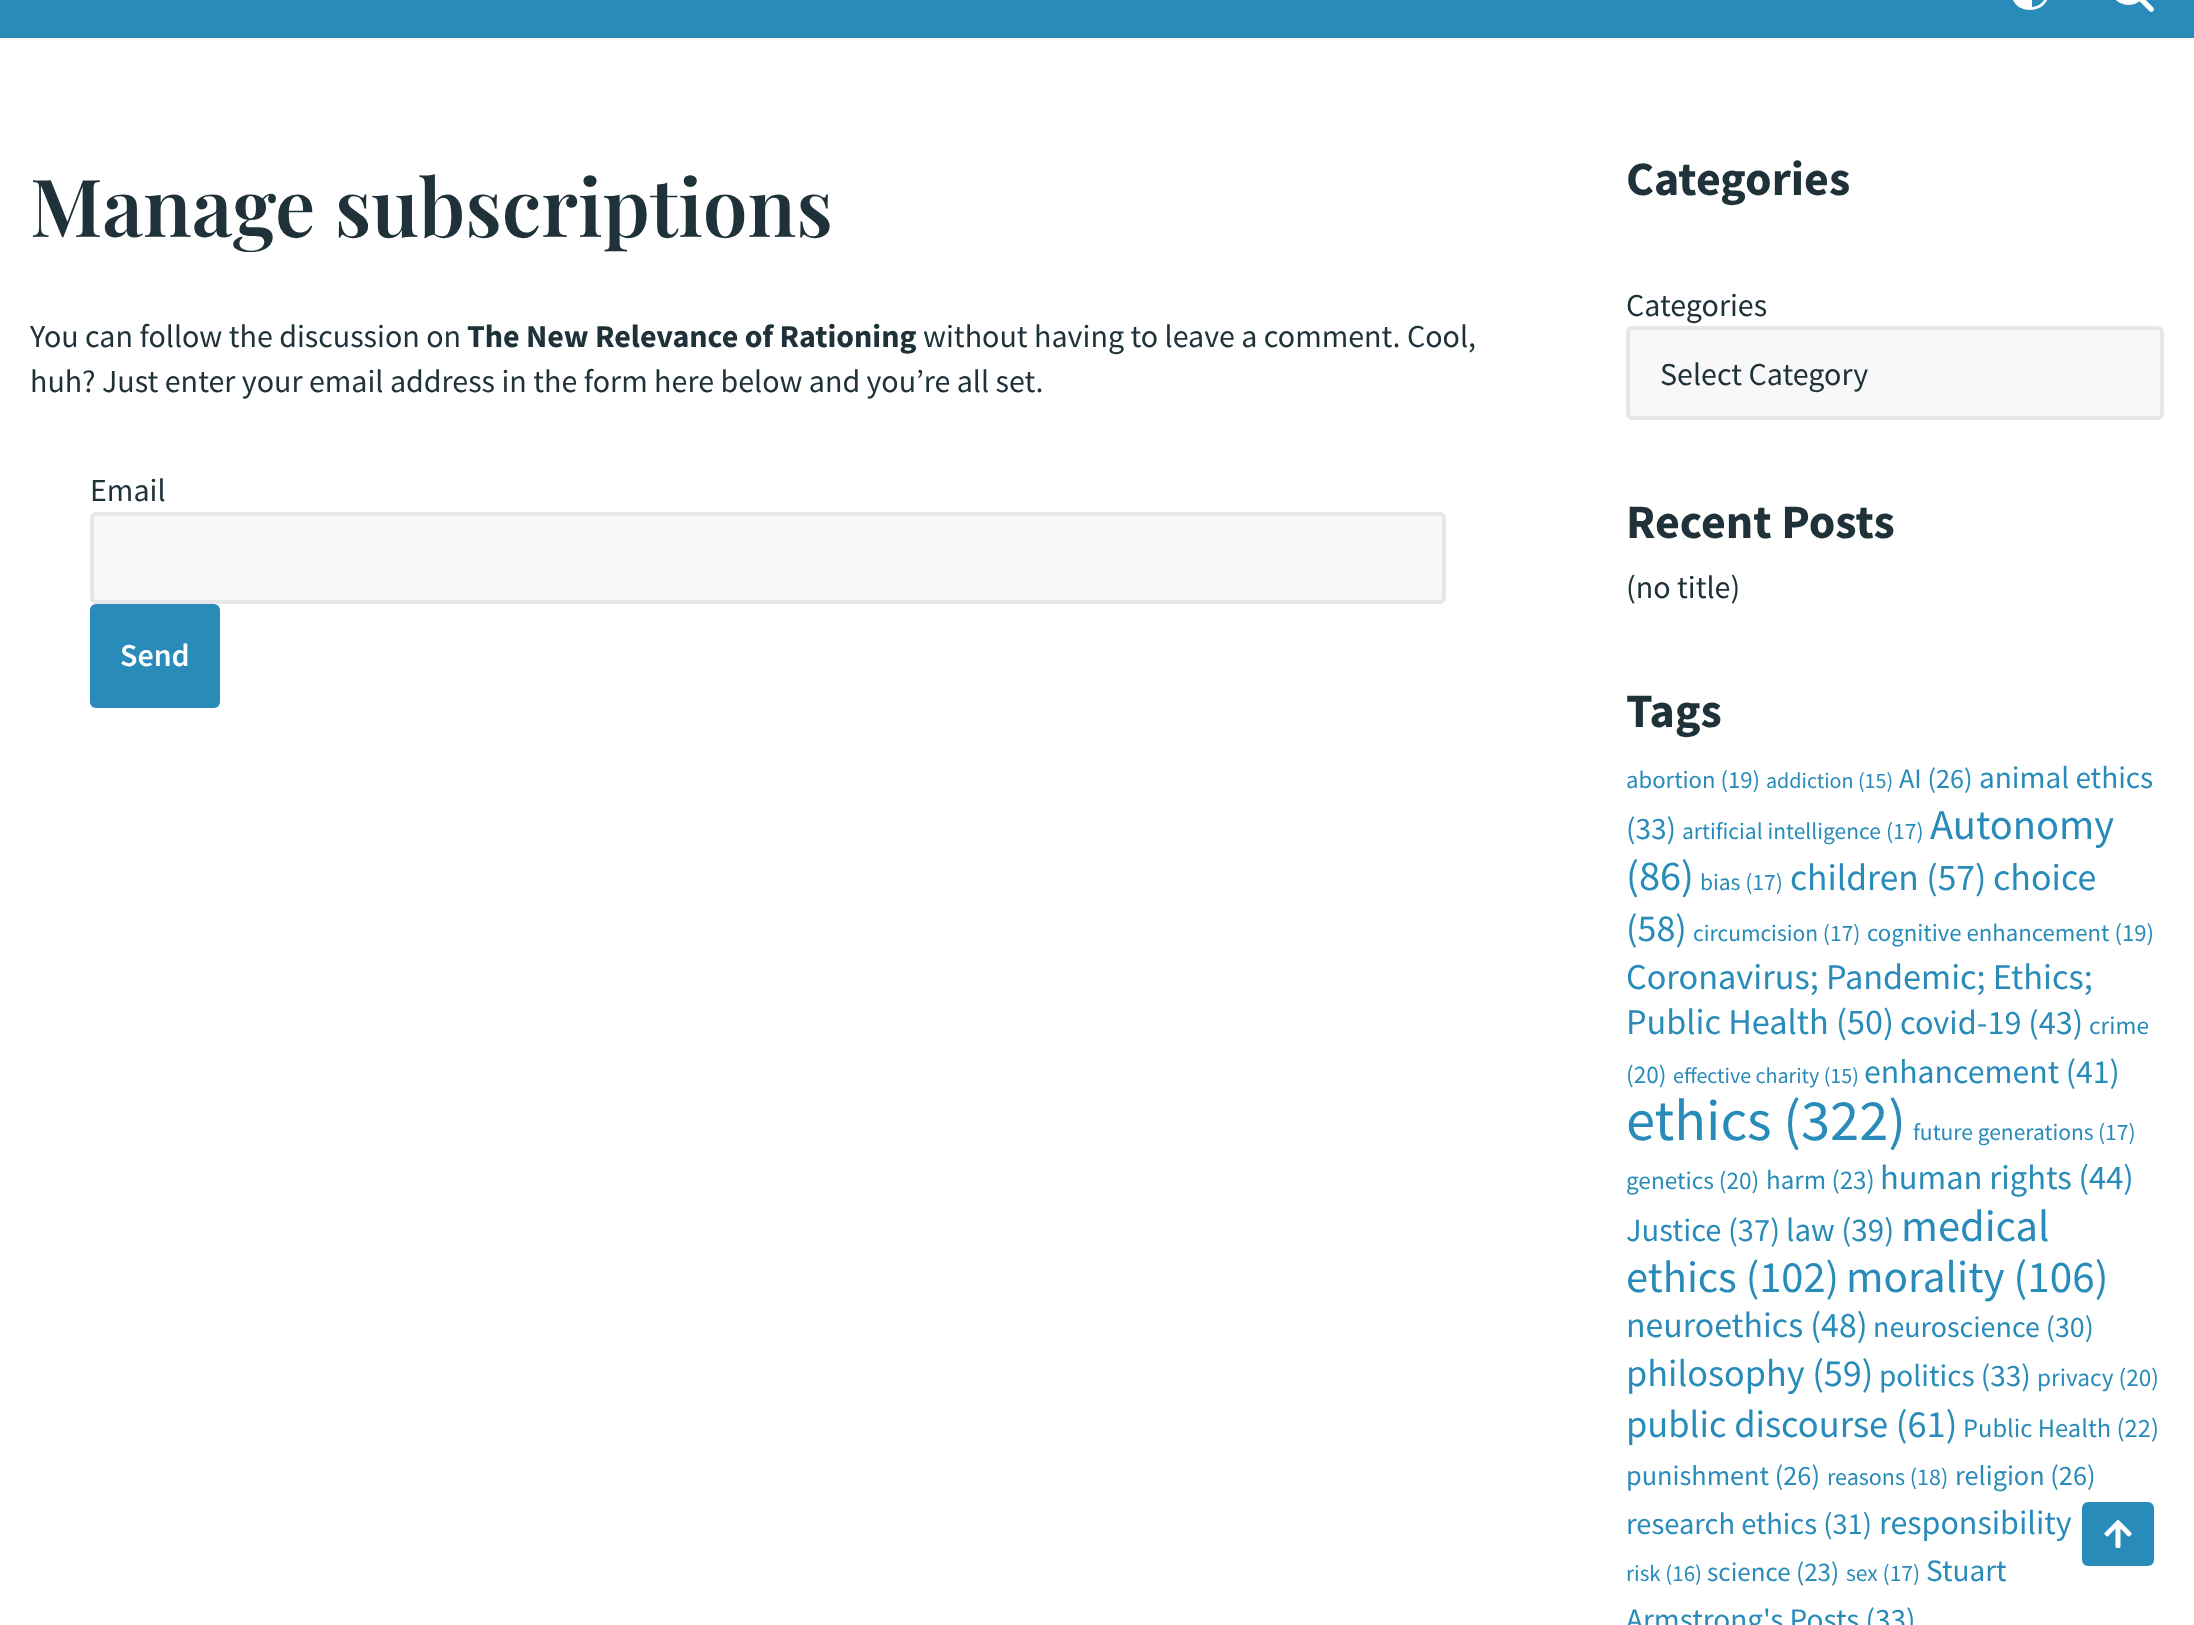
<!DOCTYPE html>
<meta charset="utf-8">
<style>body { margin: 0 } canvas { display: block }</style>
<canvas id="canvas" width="2194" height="1625"></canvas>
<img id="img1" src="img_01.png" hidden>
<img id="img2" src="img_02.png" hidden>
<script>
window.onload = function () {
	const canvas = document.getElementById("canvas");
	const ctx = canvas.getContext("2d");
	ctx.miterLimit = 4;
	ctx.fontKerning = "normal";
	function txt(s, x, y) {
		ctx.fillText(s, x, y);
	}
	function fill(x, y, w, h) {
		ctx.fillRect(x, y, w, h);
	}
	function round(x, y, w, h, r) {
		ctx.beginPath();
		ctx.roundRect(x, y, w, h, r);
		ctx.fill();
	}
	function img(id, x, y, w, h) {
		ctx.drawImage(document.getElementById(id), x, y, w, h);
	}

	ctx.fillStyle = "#FFFFFF";
	fill(0, 0, 2194, 1625);
	ctx.fillStyle = "rgba(0, 0, 0, 0.1)";
	ctx.filter = "blur(3px)";
	ctx.beginPath();
	ctx.rect(0, -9, 2194, 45);
	ctx.fill();
	ctx.filter = "none";
	ctx.fillStyle = "#288BB9";
	fill(0, 0, 2194, 38);
	ctx.fillStyle = "#FEFEFE";
	ctx.beginPath();
	ctx.moveTo(2030, -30);
	ctx.bezierCurveTo(2004, -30, 2004, 10, 2030, 10);
	ctx.bezierCurveTo(2056, 10, 2056, -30, 2030, -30);
	ctx.closePath();
	ctx.moveTo(2032, 7);
	ctx.lineTo(2032, -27);
	ctx.bezierCurveTo(2052, -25, 2052, 5, 2032, 7);
	ctx.closePath();
	ctx.fill();
	img("img1", 2116, 0, 38, 12);
	ctx.fillStyle = "#F8F8F8";
	ctx.beginPath();
	ctx.roundRect(92, 514, 1352, 88, 4);
	ctx.fill();
	ctx.strokeStyle = "#E7E7E7";
	ctx.lineWidth = 4;
	ctx.stroke();
	ctx.fillStyle = "#288BB9";
	round(90, 604, 130, 104, 6);
	ctx.fillStyle = "#F8F8F8";
	ctx.beginPath();
	ctx.roundRect(1628, 328, 534, 90, 4);
	ctx.fill();
	ctx.stroke();
	ctx.fillStyle = "#288BB9";
	round(2082, 1502, 72, 64, 6);
	img("img2", 2104, 1520, 28, 28);
	ctx.font = "600 80px Playfair Display";
	ctx.fillStyle = "#203239";
	txt("Manage subscriptions", 30, 237);
	ctx.font = "32px Source Sans Pro";
	txt("You can follow the discussion on", 30, 347);
	ctx.font = "bold 32px Source Sans Pro";
	txt("The New Relevance of Rationing", 467, 347);
	ctx.font = "32px Source Sans Pro";
	txt("without having to leave a comment. Cool,", 923, 347);
	txt("huh? Just enter your email address in the form here below and you’re all set.", 30, 392);
	txt("Email", 90, 501);
	ctx.font = "600 32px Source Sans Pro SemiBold";
	ctx.fillStyle = "#FFFFFF";
	txt("Send", 120, 666);
	ctx.font = "bold 48px Source Sans Pro";
	ctx.fillStyle = "#203239";
	txt("Categories", 1626, 195);
	ctx.font = "32px Source Sans Pro";
	txt("Categories", 1626, 316);
	txt("Select Category", 1660, 385);
	ctx.font = "bold 48px Source Sans Pro";
	txt("Recent Posts", 1626, 538);
	ctx.font = "32px Source Sans Pro";
	txt("(no title)", 1626, 598);
	ctx.font = "bold 48px Source Sans Pro";
	txt("Tags", 1626, 727);
	ctx.font = "24.75px Source Sans Pro";
	ctx.fillStyle = "#288BB9";
	txt("abortion (19)", 1626, 788);
	ctx.font = "22px Source Sans Pro";
	txt("addiction (15)", 1766, 788);
	ctx.font = "28.25px Source Sans Pro";
	txt("AI (26)", 1899, 788);
	ctx.font = "31.25px Source Sans Pro";
	txt("animal ethics", 1979, 788);
	txt("(33)", 1626, 839);
	ctx.font = "23.5px Source Sans Pro";
	txt("artificial intelligence", 1682, 839);
	txt("(17)", 1886, 839);
	ctx.font = "42.5px Source Sans Pro";
	txt("Autonomy", 1930, 839);
	txt("(86)", 1626, 890);
	ctx.font = "23.5px Source Sans Pro";
	txt("bias (17)", 1700, 890);
	ctx.font = "37.5px Source Sans Pro";
	txt("children (57)", 1790, 890);
	ctx.font = "38px Source Sans Pro";
	txt("choice", 1993, 890);
	txt("(58)", 1626, 941);
	ctx.font = "23.5px Source Sans Pro";
	txt("circumcision (17)", 1693, 941);
	ctx.font = "24.75px Source Sans Pro";
	txt("cognitive enhancement (19)", 1867, 941);
	ctx.font = "36.25px Source Sans Pro";
	txt("Coronavirus; Pandemic; Ethics;", 1626, 989);
	txt("Public Health (50)", 1626, 1034);
	ctx.font = "34.25px Source Sans Pro";
	txt("covid-19 (43)", 1900, 1034);
	ctx.font = "25.25px Source Sans Pro";
	txt("crime", 2089, 1034);
	txt("(20)", 1626, 1083);
	ctx.font = "22px Source Sans Pro";
	txt("effective charity (15)", 1673, 1083);
	ctx.font = "33.75px Source Sans Pro";
	txt("enhancement (41)", 1864, 1083);
	ctx.font = "58.5px Source Sans Pro";
	txt("ethics (322)", 1626, 1140);
	ctx.font = "23.5px Source Sans Pro";
	txt("future generations", 1913, 1140);
	txt("(17)", 2098, 1140);
	ctx.font = "25.25px Source Sans Pro";
	txt("genetics (20)", 1626, 1189);
	ctx.font = "27px Source Sans Pro";
	txt("harm (23)", 1766, 1189);
	ctx.font = "34.5px Source Sans Pro";
	txt("human rights (44)", 1880, 1189);
	ctx.font = "32.5px Source Sans Pro";
	txt("Justice (37)", 1626, 1241);
	ctx.font = "33px Source Sans Pro";
	txt("law (39)", 1786, 1241);
	ctx.font = "44.5px Source Sans Pro";
	txt("medical", 1901, 1241);
	txt("ethics (102)", 1626, 1292);
	ctx.font = "45.25px Source Sans Pro";
	txt("morality (106)", 1846, 1292);
	ctx.font = "35.75px Source Sans Pro";
	txt("neuroethics (48)", 1626, 1337);
	ctx.font = "30px Source Sans Pro";
	txt("neuroscience (30)", 1873, 1337);
	ctx.font = "38.25px Source Sans Pro";
	txt("philosophy (59)", 1626, 1386);
	ctx.font = "31.25px Source Sans Pro";
	txt("politics (33)", 1879, 1386);
	ctx.font = "25.25px Source Sans Pro";
	txt("privacy (20)", 2037, 1386);
	ctx.font = "38.5px Source Sans Pro";
	txt("public discourse (61)", 1626, 1437);
	ctx.font = "26.5px Source Sans Pro";
	txt("Public Health (22)", 1963, 1437);
	ctx.font = "28.25px Source Sans Pro";
	txt("punishment (26)", 1626, 1485);
	ctx.font = "24px Source Sans Pro";
	txt("reasons (18)", 1827, 1485);
	ctx.font = "28.25px Source Sans Pro";
	txt("religion (26)", 1955, 1485);
	ctx.font = "30.5px Source Sans Pro";
	txt("research ethics (31)", 1626, 1534);
	ctx.font = "34px Source Sans Pro";
	txt("responsibility", 1879, 1534);
	ctx.font = "23px Source Sans Pro";
	txt("risk (16)", 1626, 1581);
	ctx.font = "27px Source Sans Pro";
	txt("science (23)", 1707, 1581);
	ctx.font = "23.5px Source Sans Pro";
	txt("sex (17)", 1846, 1581);
	ctx.font = "31.25px Source Sans Pro";
	txt("Stuart", 1926, 1581);
	txt("Armstrong's Posts (33)", 1626, 1630);
};
</script>
